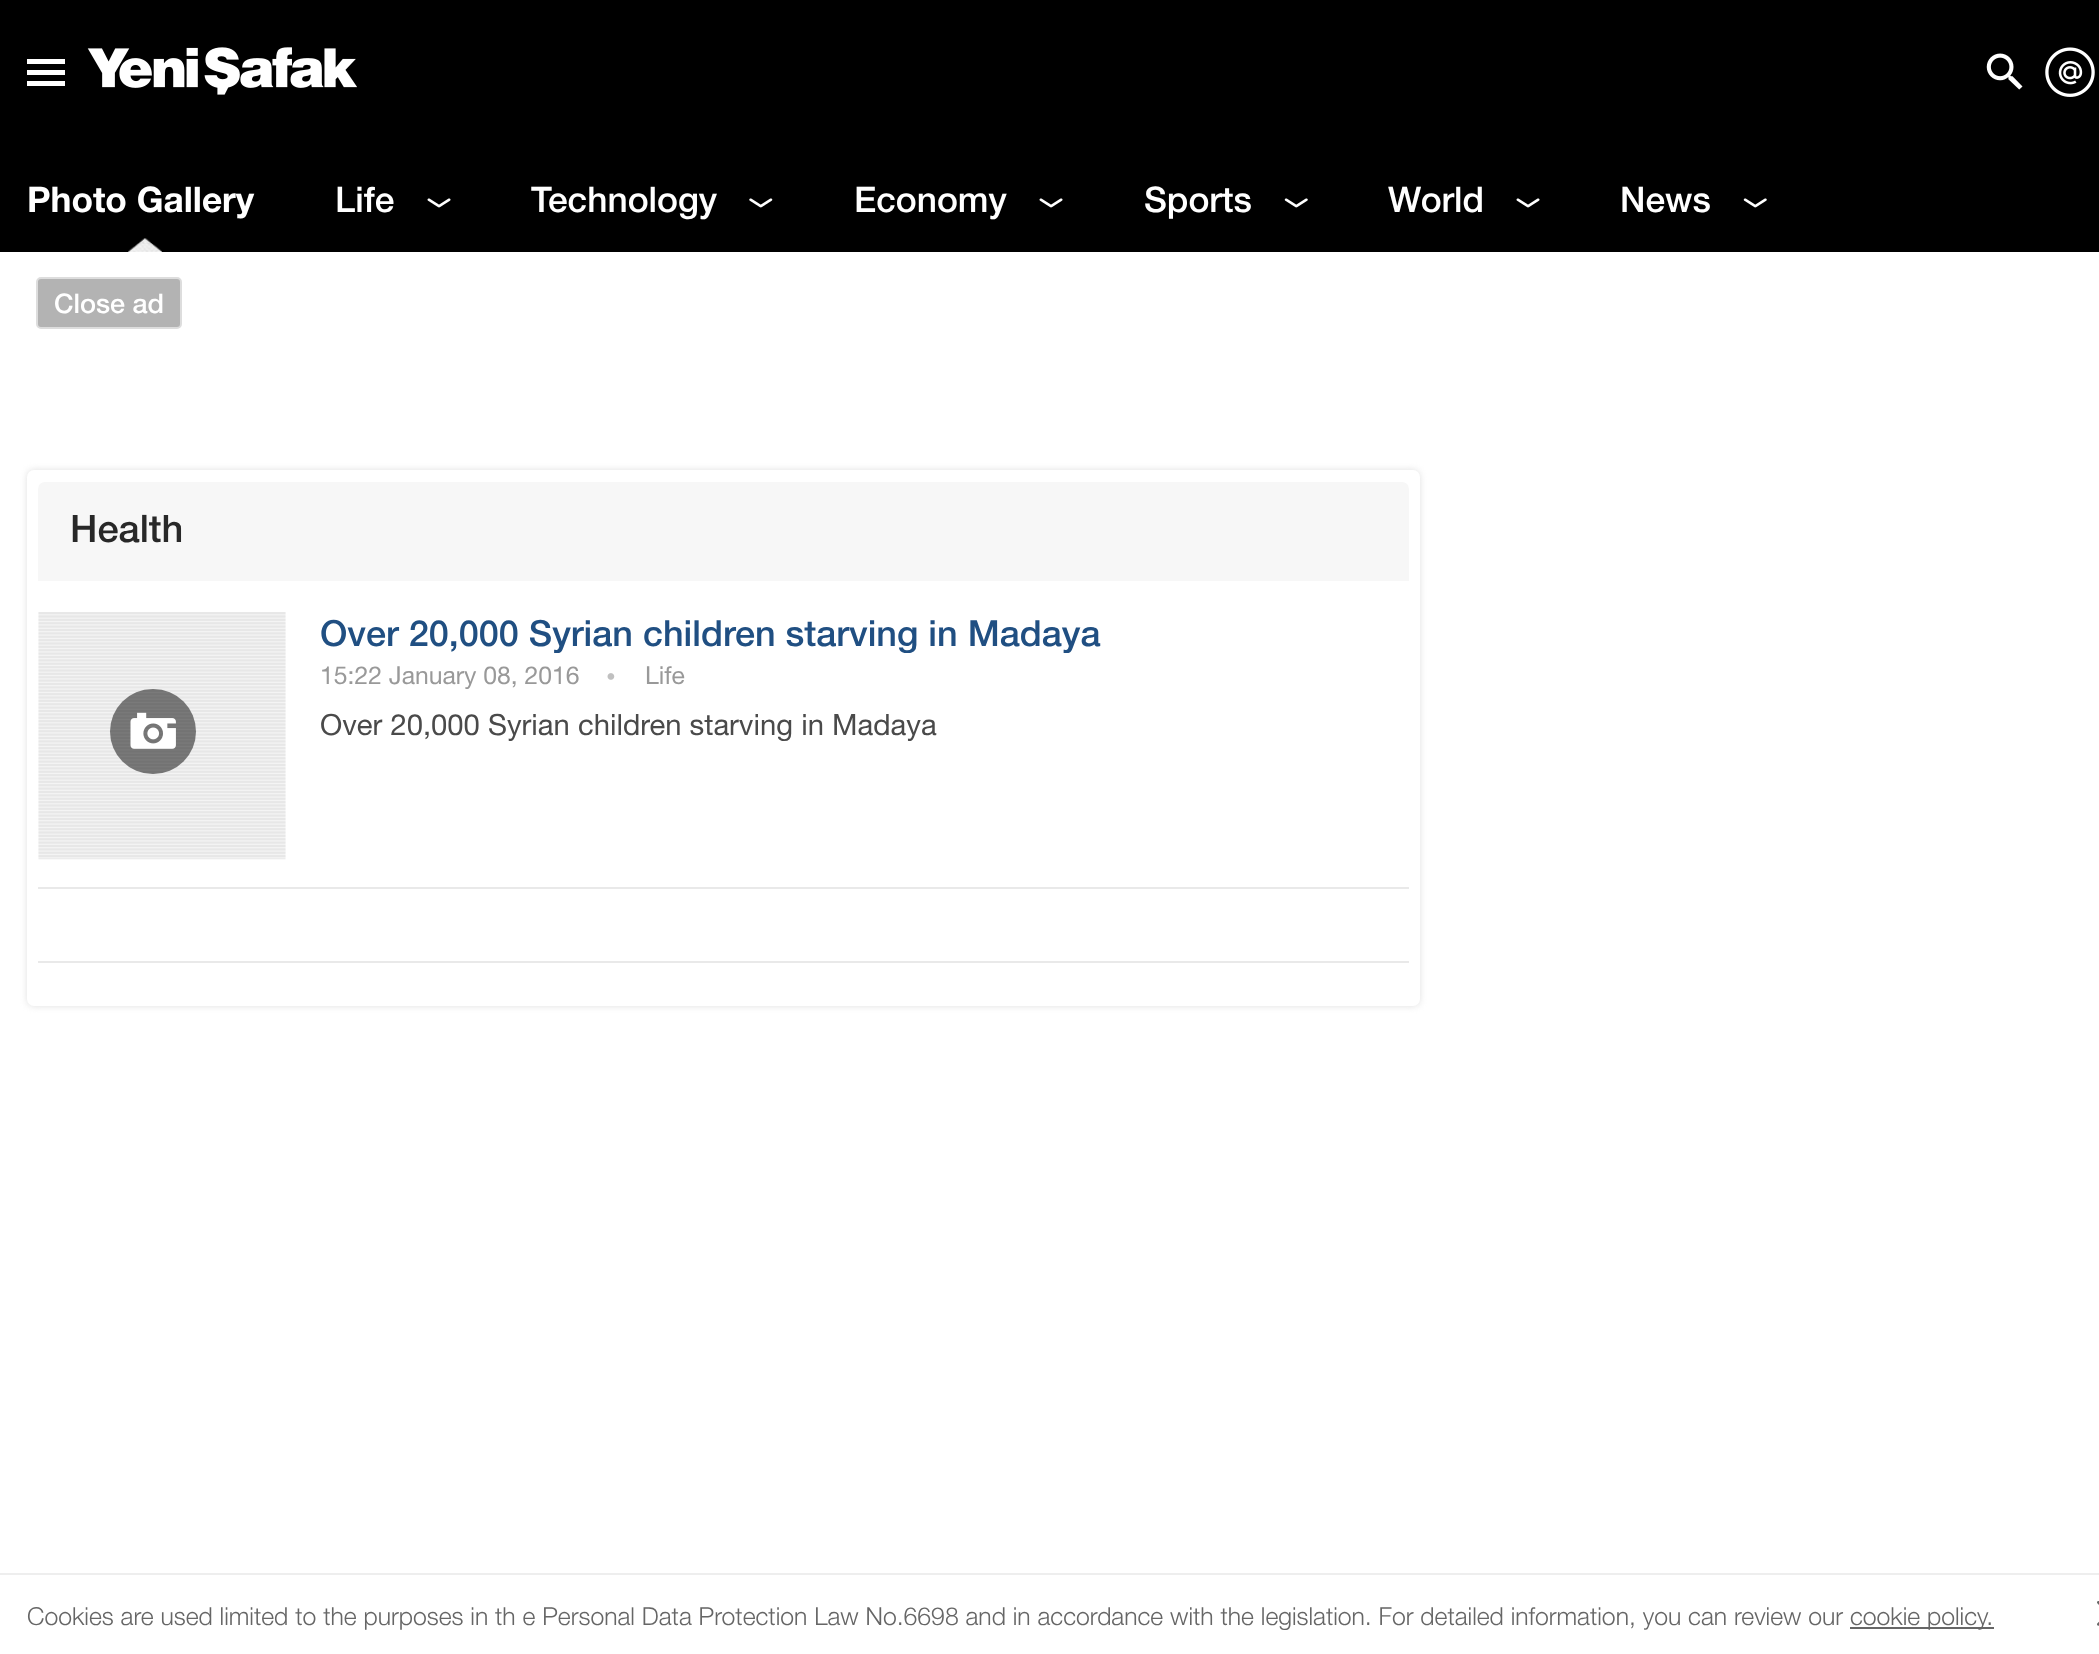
<!DOCTYPE html>
<meta charset="utf-8">
<style>body { margin: 0 } canvas { display: block }</style>
<canvas id="canvas" width="2099" height="1654"></canvas>
<img id="img1" src="img_01.png" hidden>
<img id="img2" src="img_02.png" hidden>
<img id="img3" src="img_03.png" hidden>
<img id="img4" src="img_04.png" hidden>
<img id="img5" src="img_05.png" hidden>
<img id="img6" src="img_06.png" hidden>
<img id="img7" src="img_07.png" hidden>
<img id="img8" src="img_08.png" hidden>
<img id="img9" src="img_09.png" hidden>
<img id="img10" src="img_10.png" hidden>
<img id="img11" src="img_11.png" hidden>
<script>
window.onload = function () {
	const canvas = document.getElementById("canvas");
	const ctx = canvas.getContext("2d");
	ctx.miterLimit = 4;
	ctx.fontKerning = "normal";
	function txt(s, x, y) {
		ctx.fillText(s, x, y);
	}
	function fill(x, y, w, h) {
		ctx.fillRect(x, y, w, h);
	}
	function round(x, y, w, h, r) {
		ctx.beginPath();
		ctx.roundRect(x, y, w, h, r);
		ctx.fill();
	}
	function img(id, x, y, w, h) {
		ctx.drawImage(document.getElementById(id), x, y, w, h);
	}

	ctx.fillStyle = "#FFFFFF";
	fill(0, 0, 2099, 1654);
	ctx.fillStyle = "#000000";
	fill(0, 0, 2099, 252);
	ctx.fillStyle = "#FFFFFF";
	fill(27, 59, 38, 5);
	fill(27, 70, 38, 5);
	fill(27, 81, 38, 5);
	img("img1", 87, 47, 270, 48);
	img("img2", 1986, 53, 37, 37);
	img("img3", 2045, 47, 50, 50);
	img("img4", 128, 238, 34, 14);
	img("img5", 427, 198, 24, 10);
	img("img6", 749, 198, 24, 10);
	img("img5", 1039, 198, 24, 10);
	img("img7", 1284, 198, 24, 10);
	img("img5", 1516, 198, 24, 10);
	img("img7", 1743, 198, 24, 10);
	ctx.fillStyle = "#B3B3B3";
	ctx.beginPath();
	ctx.roundRect(37, 278, 144, 50, 4);
	ctx.fill();
	ctx.strokeStyle = "#DDDDDD";
	ctx.lineWidth = 2;
	ctx.stroke();
	ctx.fillStyle = "rgba(192, 192, 192, 0.5)";
	ctx.filter = "blur(3.5px)";
	ctx.beginPath();
	ctx.roundRect(27, 470, 1393, 536, 7);
	ctx.fill();
	ctx.filter = "none";
	ctx.fillStyle = "#FFFFFF";
	round(27, 470, 1393, 536, 7);
	ctx.fillStyle = "#F7F7F7";
	ctx.beginPath();
	ctx.roundRect(38, 482, 1371, 99, [7, 7, 0, 0]);
	ctx.fill();
	ctx.fillStyle = "#E9E9E9";
	fill(38, 887, 1371, 2);
	img("img8", 38, 612, 248, 248);
	ctx.fillStyle = "rgba(0, 0, 0, 0.5)";
	round(110, 689, 86, 85, 42.5);
	img("img9", 130, 712, 46, 37);
	img("img10", 607, 673, 8, 7);
	ctx.fillStyle = "#E9E9E9";
	fill(38, 961, 1371, 2);
	ctx.fillStyle = "#EEEEEE";
	fill(0, 1573, 2099, 2);
	ctx.fillStyle = "#666666";
	fill(1850, 1627, 144, 2);
	img("img11", 2097, 1601, 2, 25);
	ctx.font = "bold 35.25px Helvetica Neue";
	ctx.fillStyle = "#FFFFFF";
	txt("Photo Gallery", 27, 212);
	ctx.font = "500 35.25px Helvetica Neue";
	txt("Life", 335, 212);
	txt("Technology", 531, 212);
	txt("Economy", 854, 212);
	txt("Sports", 1144, 212);
	txt("World", 1388, 212);
	txt("News", 1620, 212);
	ctx.font = "500 27px Helvetica Neue";
	txt("Close ad", 54, 313);
	ctx.font = "500 38px Helvetica Neue";
	ctx.fillStyle = "#282828";
	txt("Health", 70, 542);
	ctx.save();
	ctx.beginPath();
	ctx.rect(320, 612, 1089, 41);
	ctx.clip();
	ctx.font = "500 36px Helvetica Neue";
	ctx.fillStyle = "#204F82";
	txt("Over 20,000 Syrian children starving in Madaya", 320, 646);
	ctx.restore();
	ctx.font = "24.75px Helvetica Neue";
	ctx.fillStyle = "#999999";
	txt("15:22 January 08, 2016", 320, 684);
	txt("Life", 645, 684);
	ctx.font = "29.25px Helvetica Neue";
	ctx.fillStyle = "#4A4A4A";
	txt("Over 20,000 Syrian children starving in Madaya", 320, 735);
	ctx.font = "300 24.75px Helvetica Neue";
	ctx.fillStyle = "#666666";
	txt("Cookies are used limited to the purposes in th e Personal Data Protection Law No.6698 and in accordance with the legislation. For detailed information, you can review our", 27, 1625);
	txt("cookie policy.", 1850, 1625);
};
</script>
